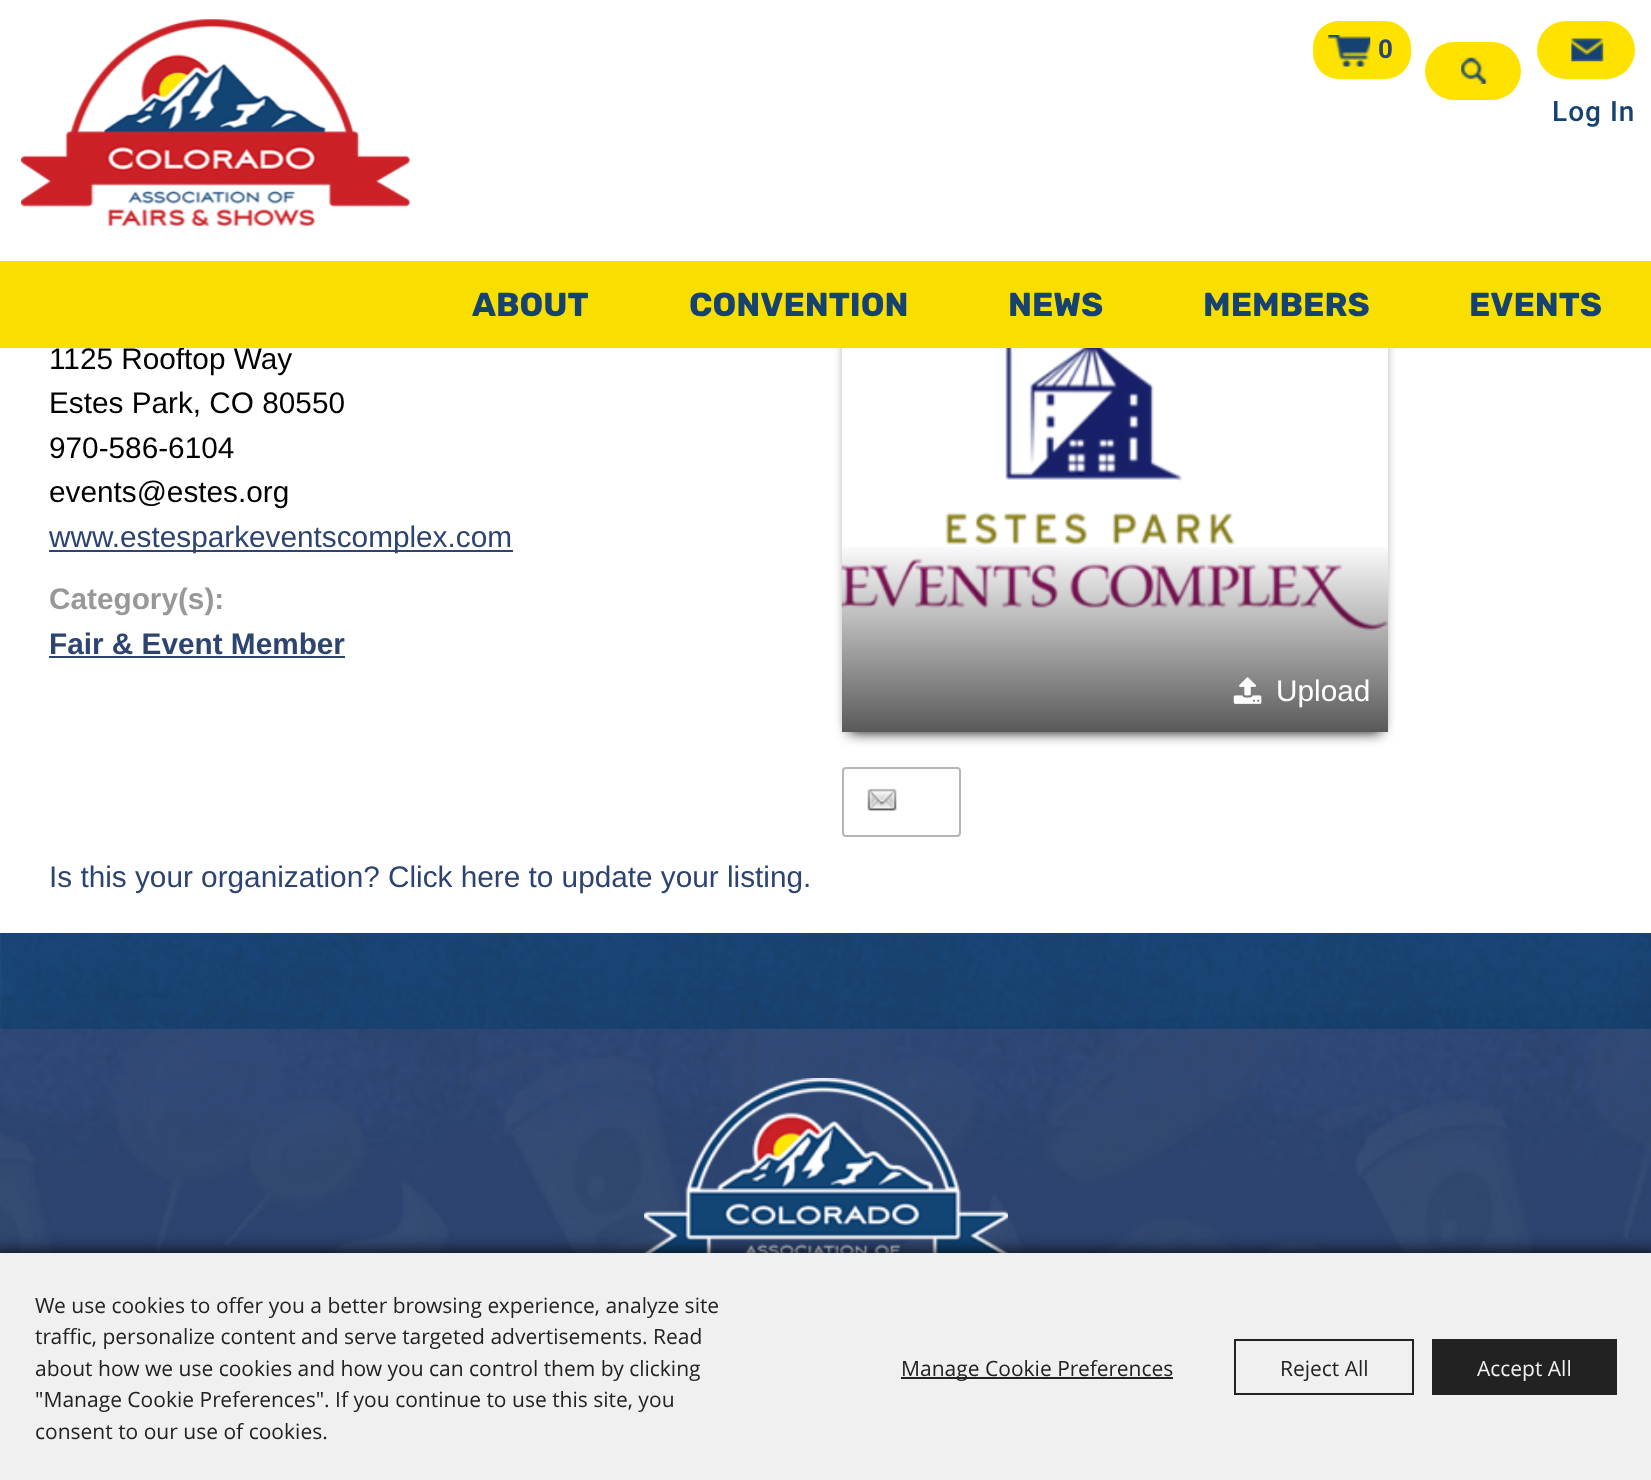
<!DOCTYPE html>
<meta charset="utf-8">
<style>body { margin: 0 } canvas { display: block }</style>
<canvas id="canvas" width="1651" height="1480"></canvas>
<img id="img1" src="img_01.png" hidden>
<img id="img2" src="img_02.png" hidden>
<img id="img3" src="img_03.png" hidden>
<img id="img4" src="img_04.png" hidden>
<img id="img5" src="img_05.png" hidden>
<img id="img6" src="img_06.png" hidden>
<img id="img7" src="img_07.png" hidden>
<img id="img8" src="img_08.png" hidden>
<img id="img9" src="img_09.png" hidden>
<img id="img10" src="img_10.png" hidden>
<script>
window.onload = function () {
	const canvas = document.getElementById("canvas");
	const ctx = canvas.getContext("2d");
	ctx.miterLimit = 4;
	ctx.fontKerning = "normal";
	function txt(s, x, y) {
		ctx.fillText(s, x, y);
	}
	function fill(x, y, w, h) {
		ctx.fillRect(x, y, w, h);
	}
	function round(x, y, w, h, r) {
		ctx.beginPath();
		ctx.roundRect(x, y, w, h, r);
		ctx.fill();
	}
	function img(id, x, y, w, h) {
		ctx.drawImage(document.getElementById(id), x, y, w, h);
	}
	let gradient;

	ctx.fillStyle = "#FFFFFF";
	fill(0, 0, 1651, 1480);
	img("img1", 0, 933, 1651, 96);
	ctx.save();
	ctx.beginPath();
	ctx.moveTo(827, 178);
	ctx.lineTo(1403, 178);
	ctx.lineTo(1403, 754);
	ctx.lineTo(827, 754);
	ctx.closePath();
	ctx.moveTo(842, 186);
	ctx.lineTo(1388, 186);
	ctx.lineTo(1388, 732);
	ctx.lineTo(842, 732);
	ctx.closePath();
	ctx.clip("evenodd");
	ctx.fillStyle = "#000000";
	ctx.filter = "blur(7px)";
	ctx.beginPath();
	ctx.rect(849, 200, 532, 532);
	ctx.fill();
	ctx.filter = "none";
	ctx.restore();
	fill(833, 184, 564, 77);
	img("img2", 21, 19, 389, 207);
	ctx.fillStyle = "#FFE200";
	round(1313, 21, 98, 58, 26);
	img("img3", 1328, 35, 43, 32);
	round(1425, 42, 96, 58, 29);
	img("img4", 1461, 57, 26, 27);
	round(1537, 21, 98, 58, 29);
	img("img5", 1571, 38, 33, 24);
	ctx.fillStyle = "#2C446F";
	fill(49, 550, 464, 2);
	fill(49, 656, 296, 2);
	img("img6", 841, 348, 547, 283);
	gradient = ctx.createLinearGradient(1115, 185, 1115, 732);
	gradient.addColorStop(0.65, "rgba(0, 0, 0, 0)");
	gradient.addColorStop(1, "rgba(0, 0, 0, 0.65)");
	ctx.fillStyle = gradient;
	fill(842, 547, 546, 185);
	img("img7", 1233, 677, 29, 27);
	ctx.beginPath();
	ctx.roundRect(843, 768, 117, 68, 3);
	ctx.strokeStyle = "#B6B6B6";
	ctx.lineWidth = 2;
	ctx.stroke();
	img("img8", 867, 788, 30, 23);
	img("img9", 0, 1029, 1651, 224);
	img("img10", 644, 1078, 364, 175);
	ctx.fillStyle = "#000000";
	ctx.filter = "blur(9px)";
	ctx.beginPath();
	ctx.rect(-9, 1253, 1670, 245);
	ctx.fill();
	ctx.filter = "none";
	ctx.fillStyle = "#F0F0F0";
	fill(0, 1253, 1651, 227);
	ctx.fillStyle = "#222222";
	fill(901, 1377, 272, 2);
	ctx.strokeStyle = "#222222";
	ctx.strokeRect(1235, 1340, 178, 54);
	fill(1432, 1339, 185, 56);
	ctx.font = "bold 26px Roboto";
	ctx.fillStyle = "#2C446F";
	txt("0", 1378, 58);
	ctx.letterSpacing = "1px";
	ctx.font = "500 28px Roboto";
	ctx.fillStyle = "#154271";
	txt("Log In", 1552, 121);
	ctx.letterSpacing = "0px";
	ctx.font = "29.75px Liberation Sans";
	ctx.fillStyle = "#000000";
	txt("1125 Rooftop Way", 49, 369);
	ctx.fillStyle = "#F8DF00";
	fill(0, 261, 1651, 87);
	ctx.font = "bold 33.25px Rubik";
	ctx.fillStyle = "#154271";
	txt("EVENTS", 1469, 316);
	txt("MEMBERS", 1203, 316);
	txt("NEWS", 1008, 316);
	txt("CONVENTION", 689, 316);
	txt("ABOUT", 472, 316);
	ctx.font = "29.75px Liberation Sans";
	ctx.fillStyle = "#000000";
	txt("Estes Park, CO 80550", 49, 413);
	txt("970-586-6104", 49, 458);
	txt("events@estes.org", 49, 502);
	ctx.fillStyle = "#2C446F";
	txt("www.estesparkeventscomplex.com", 49, 547);
	ctx.font = "bold 29.75px Liberation Sans";
	ctx.fillStyle = "#999898";
	txt("Category(s):", 49, 609);
	ctx.fillStyle = "#2C446F";
	txt("Fair & Event Member", 49, 654);
	ctx.font = "29.75px Liberation Sans";
	ctx.fillStyle = "#FFFFFF";
	txt("Upload", 1276, 701);
	ctx.fillStyle = "#2C446F";
	txt("Is this your organization? Click here to update your listing.", 49, 887);
	ctx.font = "21px Open Sans";
	ctx.fillStyle = "#222222";
	txt("We use cookies to offer you a better browsing experience, analyze site", 35, 1313);
	txt("traffic, personalize content and serve targeted advertisements. Read", 35, 1344);
	txt("about how we use cookies and how you can control them by clicking", 35, 1376);
	txt("\"Manage Cookie Preferences\". If you continue to use this site, you", 35, 1407);
	txt("consent to our use of cookies.", 35, 1439);
	txt("Manage Cookie Preferences", 901, 1376);
	txt("Reject All", 1280, 1376);
	ctx.fillStyle = "#F0F0F0";
	txt("Accept All", 1477, 1376);
};
</script>
